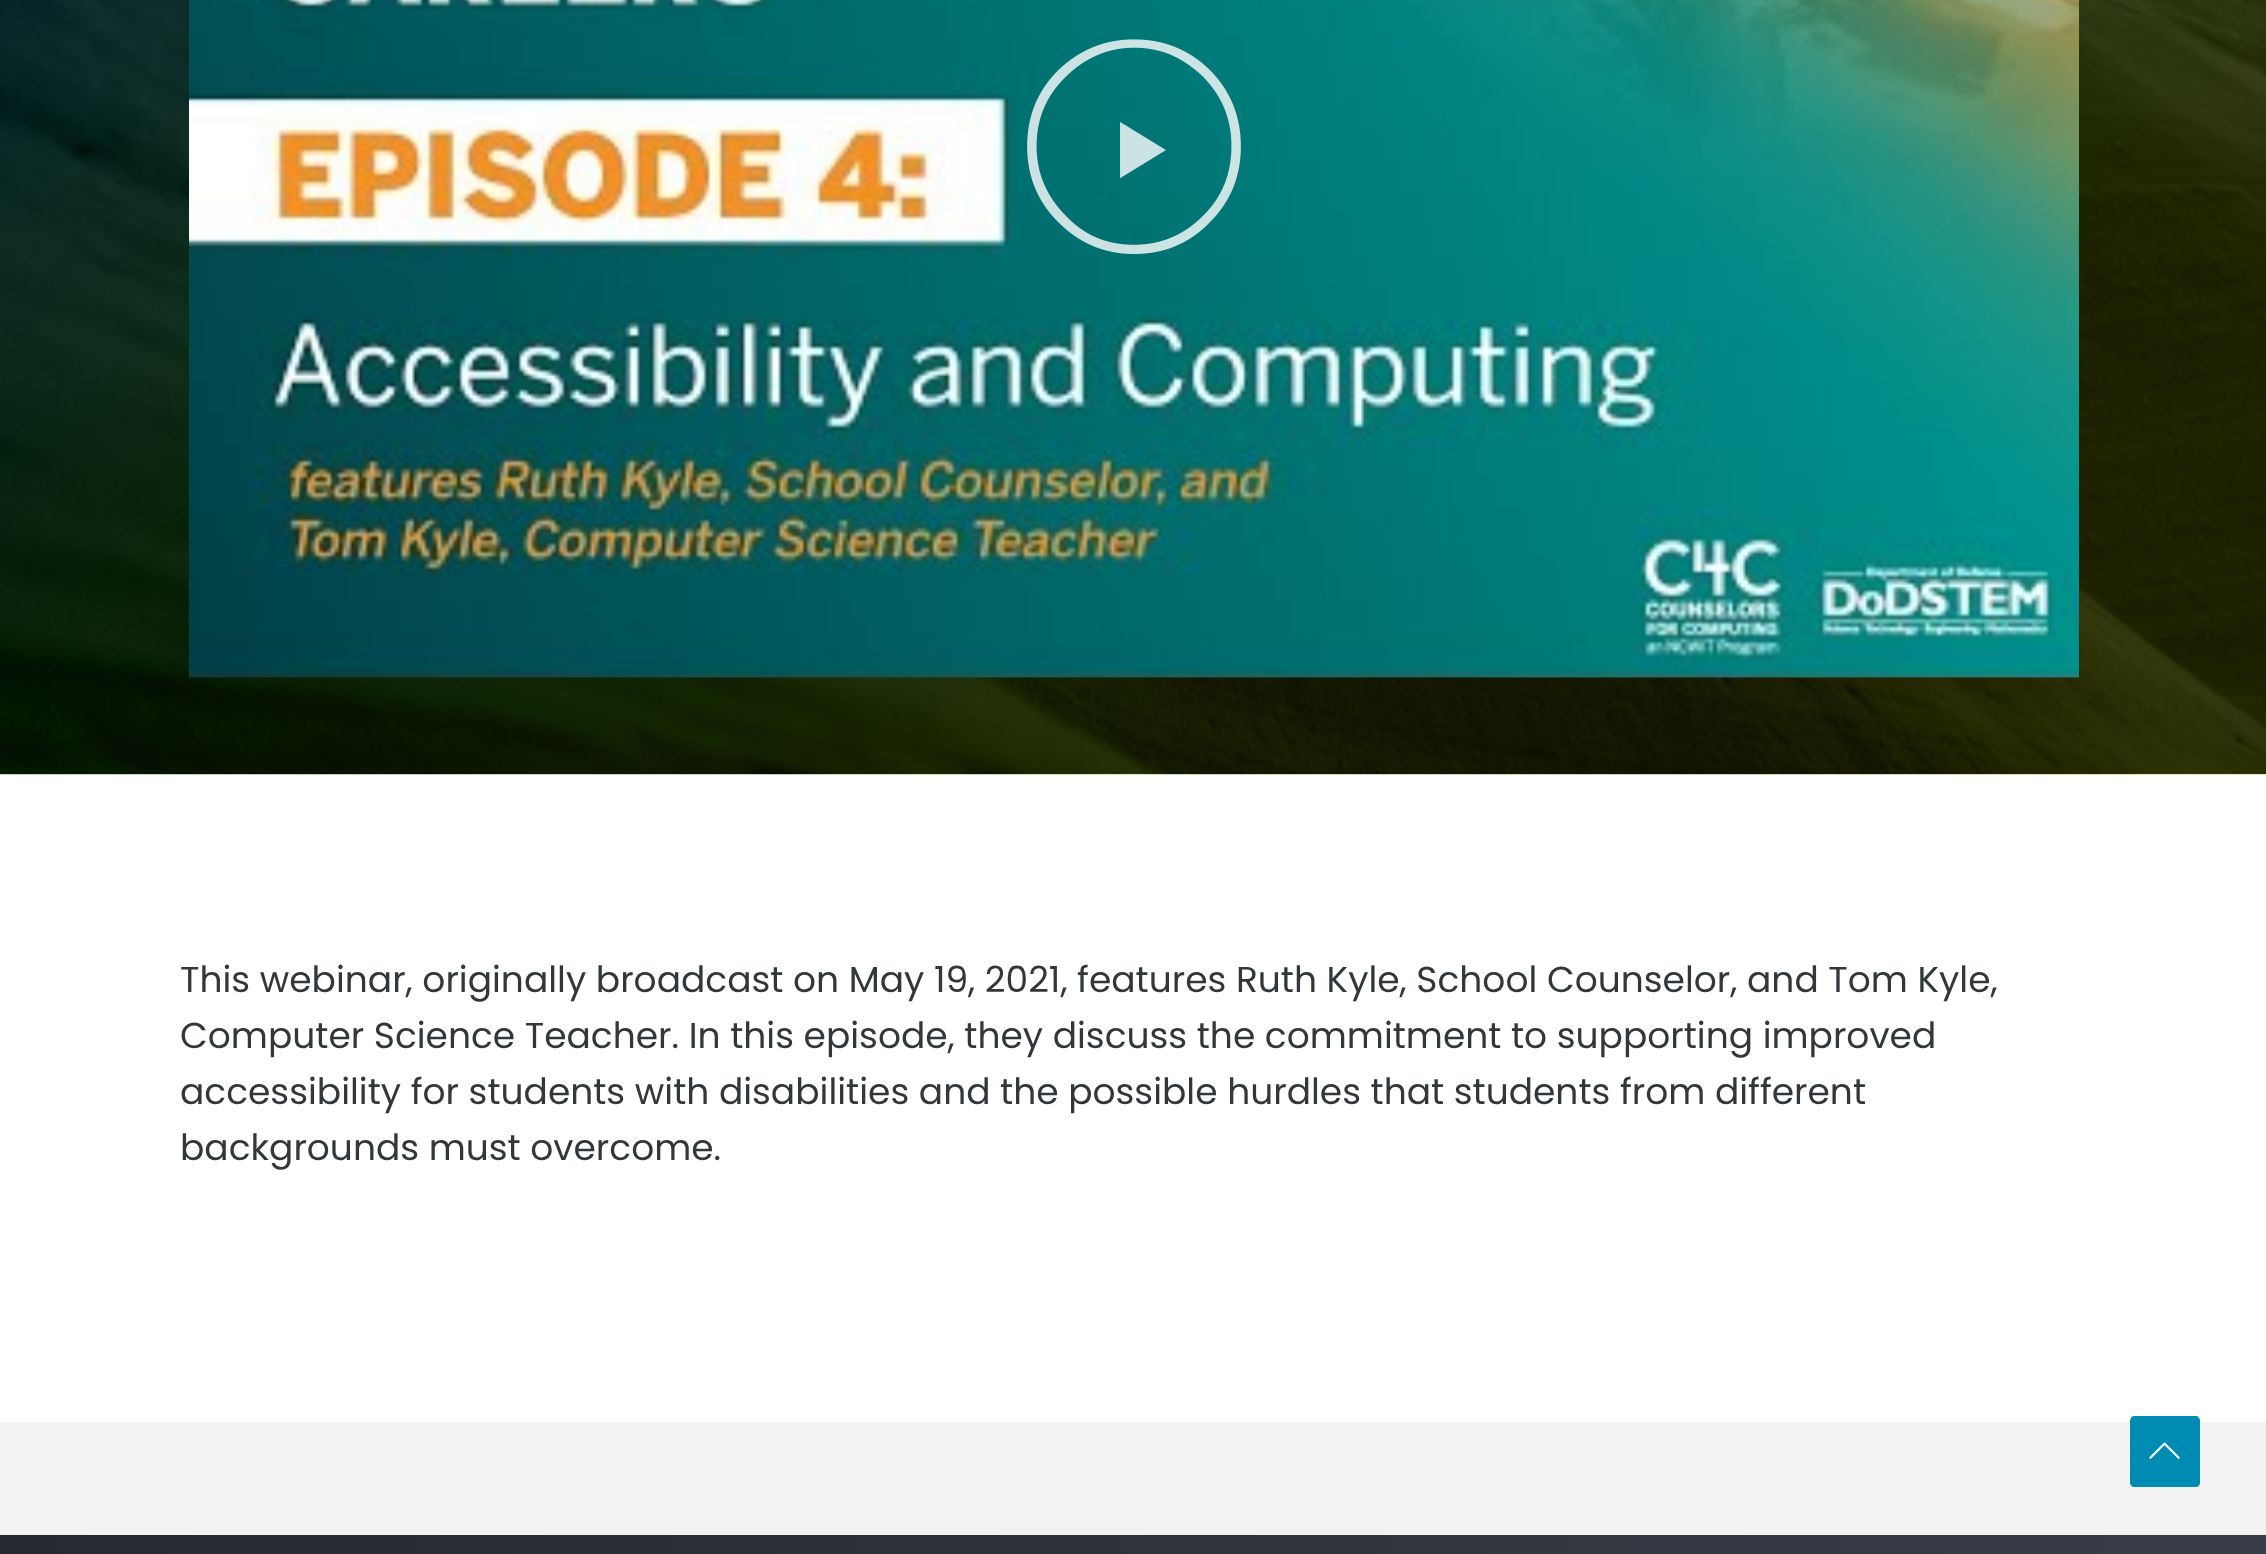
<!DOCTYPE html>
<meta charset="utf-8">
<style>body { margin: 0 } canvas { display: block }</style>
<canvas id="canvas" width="2266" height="1554"></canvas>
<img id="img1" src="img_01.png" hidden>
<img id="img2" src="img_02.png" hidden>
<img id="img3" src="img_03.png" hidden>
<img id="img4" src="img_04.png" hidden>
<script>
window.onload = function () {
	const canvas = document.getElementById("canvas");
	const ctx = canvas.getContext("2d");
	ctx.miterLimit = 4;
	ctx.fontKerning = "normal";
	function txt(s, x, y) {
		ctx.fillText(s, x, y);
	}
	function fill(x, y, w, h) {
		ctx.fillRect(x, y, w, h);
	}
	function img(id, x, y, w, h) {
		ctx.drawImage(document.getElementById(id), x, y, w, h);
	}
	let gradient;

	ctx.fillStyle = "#FFFFFF";
	fill(0, 0, 2266, 1554);
	img("img1", 0, 0, 2266, 775);
	img("img2", 189, 0, 1890, 678);
	img("img3", 1027, 39, 214, 215);
	ctx.fillStyle = "#F2F2F2";
	fill(0, 1422, 2266, 113);
	gradient = ctx.createLinearGradient(0, 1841, 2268, 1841);
	gradient.addColorStop(0, "#26292F");
	gradient.addColorStop(1, "#373C47");
	ctx.fillStyle = gradient;
	fill(0, 1535, 2266, 19);
	ctx.fillStyle = "#008CB2";
	ctx.beginPath();
	ctx.moveTo(2196, 1487);
	ctx.lineTo(2134, 1487);
	ctx.bezierCurveTo(2132, 1487, 2130, 1485, 2130, 1483);
	ctx.lineTo(2130, 1421);
	ctx.bezierCurveTo(2130, 1418, 2132, 1416, 2134, 1416);
	ctx.lineTo(2196, 1416);
	ctx.bezierCurveTo(2198, 1416, 2200, 1418, 2200, 1421);
	ctx.lineTo(2200, 1483);
	ctx.bezierCurveTo(2200, 1485, 2198, 1487, 2196, 1487);
	ctx.closePath();
	ctx.fill();
	img("img4", 2149, 1442, 31, 17);
	ctx.font = "36px Poppins";
	ctx.fillStyle = "#32373C";
	txt("This webinar, originally broadcast on May 19, 2021, features Ruth Kyle, School Counselor, and Tom Kyle,", 180, 992);
	txt("Computer Science Teacher. In this episode, they discuss the commitment to supporting improved", 180, 1048);
	txt("accessibility for students with disabilities and the possible hurdles that students from different", 180, 1104);
	txt("backgrounds must overcome.", 180, 1160);
};
</script>
